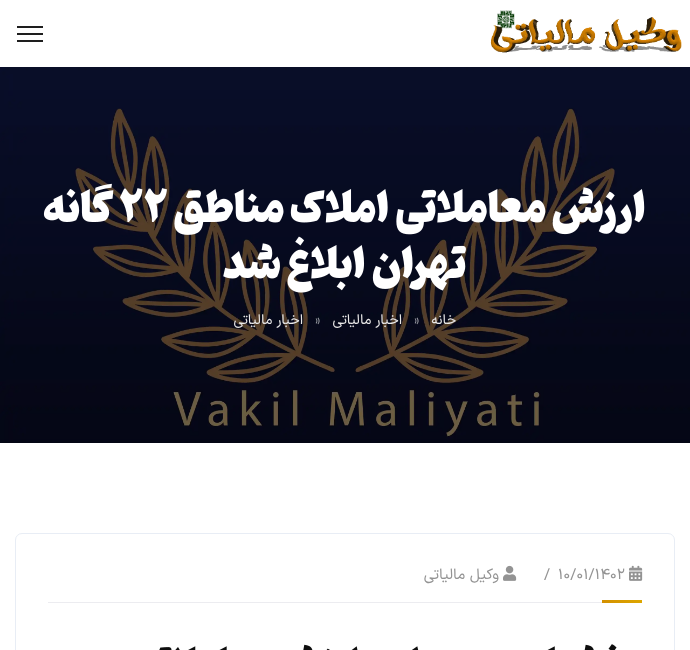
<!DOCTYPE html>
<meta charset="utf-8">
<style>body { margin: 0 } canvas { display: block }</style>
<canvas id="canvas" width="690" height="650"></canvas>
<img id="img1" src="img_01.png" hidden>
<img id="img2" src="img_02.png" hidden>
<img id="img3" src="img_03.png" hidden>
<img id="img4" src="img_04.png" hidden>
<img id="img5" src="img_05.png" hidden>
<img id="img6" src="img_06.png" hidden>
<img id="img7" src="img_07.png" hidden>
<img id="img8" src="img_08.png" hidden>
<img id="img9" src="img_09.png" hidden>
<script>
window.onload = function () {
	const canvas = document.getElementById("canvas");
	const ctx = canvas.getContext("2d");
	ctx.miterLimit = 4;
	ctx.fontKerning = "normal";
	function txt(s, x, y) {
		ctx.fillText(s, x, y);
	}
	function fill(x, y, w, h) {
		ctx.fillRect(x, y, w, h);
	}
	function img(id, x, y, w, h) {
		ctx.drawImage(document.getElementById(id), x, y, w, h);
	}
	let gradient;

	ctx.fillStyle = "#FFFFFF";
	fill(0, 0, 690, 650);
	img("img1", 490, 10, 192, 43);
	ctx.fillStyle = "#1E1E1E";
	fill(17, 26, 26, 2);
	fill(17, 33, 26, 2);
	fill(17, 40, 26, 2);
	img("img2", 0, 67, 690, 376);
	img("img3", 174, 187, 471, 48);
	img("img4", 120, 188, 47, 34);
	img("img5", 43, 183, 71, 39);
	img("img6", 223, 236, 243, 57);
	ctx.beginPath();
	ctx.roundRect(15.5, 533.5, 659, 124, 6.5);
	ctx.strokeStyle = "#E8EDF5";
	ctx.stroke();
	ctx.fillStyle = "#ECECF0";
	fill(48, 602, 554, 1);
	img("img7", 629, 565, 14, 16);
	img("img8", 503, 565, 14, 16);
	gradient = ctx.createLinearGradient(602, 602, 642, 602);
	gradient.addColorStop(0, "#D39000");
	gradient.addColorStop(1, "#DDA600");
	ctx.fillStyle = gradient;
	fill(602, 600, 40, 3);
	img("img9", 159, 644, 458, 6);
	ctx.direction = "rtl";
	ctx.font = "14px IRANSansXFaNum";
	ctx.fillStyle = "#EAE9E9";
	txt("خانه", 456, 324);
	ctx.direction = "ltr";
	ctx.fillStyle = "#A3A4AB";
	txt("»", 414, 324);
	ctx.direction = "rtl";
	ctx.fillStyle = "#EAE9E9";
	txt("اخبار مالیاتی", 402, 324);
	ctx.direction = "ltr";
	ctx.fillStyle = "#A3A4AB";
	txt("»", 315, 324);
	ctx.direction = "rtl";
	ctx.fillStyle = "#EAE9E9";
	txt("اخبار مالیاتی", 303, 324);
	ctx.direction = "ltr";
	ctx.font = "15px IRANSansXFaNum";
	ctx.fillStyle = "#939393";
	txt("۱۰/۰۱/۱۴۰۲", 558, 579);
	txt("/", 544, 579);
	ctx.direction = "rtl";
	txt("وکیل مالیاتی", 499, 579);
};
</script>
